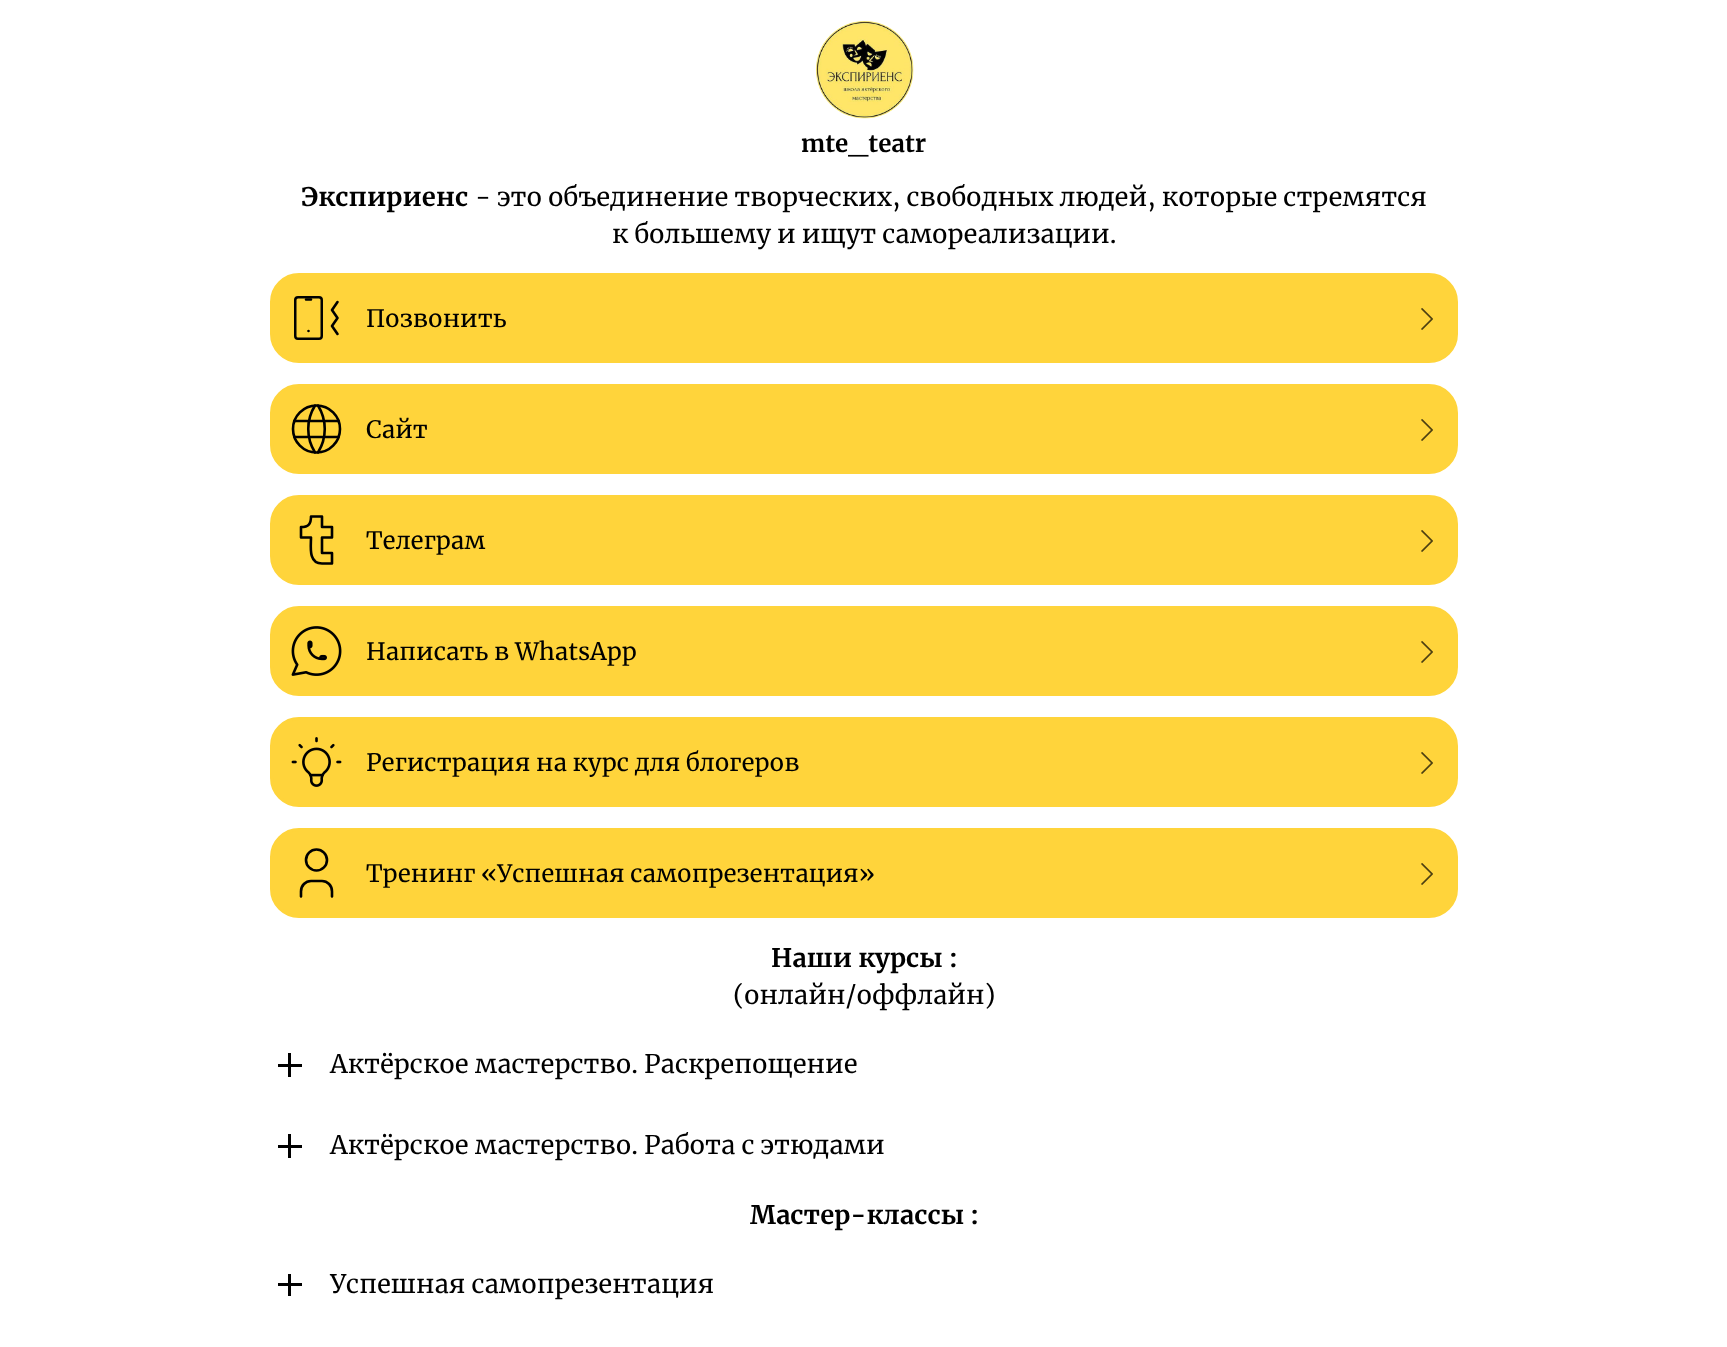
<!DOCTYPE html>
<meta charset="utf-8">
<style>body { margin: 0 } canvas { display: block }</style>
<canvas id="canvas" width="1727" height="1347"></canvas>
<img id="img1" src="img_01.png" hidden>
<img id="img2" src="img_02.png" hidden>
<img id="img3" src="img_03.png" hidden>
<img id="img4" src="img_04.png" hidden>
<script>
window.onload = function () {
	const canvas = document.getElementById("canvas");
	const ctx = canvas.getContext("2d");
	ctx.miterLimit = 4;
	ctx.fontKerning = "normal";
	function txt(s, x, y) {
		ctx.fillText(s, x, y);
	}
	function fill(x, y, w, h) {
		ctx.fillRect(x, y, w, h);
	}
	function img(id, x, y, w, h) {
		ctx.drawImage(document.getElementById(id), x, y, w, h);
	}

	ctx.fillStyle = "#FFFFFF";
	fill(0, 0, 1727, 1347);
	img("img1", 816, 21, 98, 98);
	ctx.fillStyle = "#FFD43B";
	ctx.beginPath();
	ctx.roundRect(271.5, 274.5, 1185, 87, 27.5);
	ctx.fill();
	ctx.strokeStyle = "#FFD43B";
	ctx.lineWidth = 3;
	ctx.stroke();
	ctx.beginPath();
	ctx.roundRect(295.25, 297.25, 26.5, 41.5, 2.75);
	ctx.strokeStyle = "#000000";
	ctx.lineWidth = 2.5;
	ctx.stroke();
	ctx.beginPath();
	ctx.moveTo(306, 299.5);
	ctx.lineTo(311, 299.5);
	ctx.moveTo(308.5, 331);
	ctx.lineTo(308.5, 331);
	ctx.moveTo(337.5, 302);
	ctx.lineTo(332, 310);
	ctx.lineTo(337.5, 318);
	ctx.lineTo(332, 326);
	ctx.lineTo(337.5, 334);
	ctx.lineWidth = 2.6;
	ctx.lineCap = "round";
	ctx.lineJoin = "round";
	ctx.stroke();
	img("img2", 1421, 308, 12, 22);
	ctx.beginPath();
	ctx.roundRect(271.5, 385.5, 1185, 87, 27.5);
	ctx.fill();
	ctx.strokeStyle = "#FFD43B";
	ctx.lineWidth = 3;
	ctx.lineJoin = "miter";
	ctx.stroke();
	ctx.beginPath();
	ctx.arc(316.5, 429, 23.5, 0, Math.PI * 2);
	ctx.strokeStyle = "#000000";
	ctx.lineWidth = 2.6;
	ctx.stroke();
	ctx.beginPath();
	ctx.moveTo(294.5, 421);
	ctx.lineTo(338.5, 421);
	ctx.moveTo(294.5, 437);
	ctx.lineTo(338.5, 437);
	ctx.moveTo(315, 405.5);
	ctx.bezierCurveTo(306, 420, 306, 438, 315, 452.5);
	ctx.moveTo(318, 405.5);
	ctx.bezierCurveTo(327, 420, 327, 438, 318, 452.5);
	ctx.lineJoin = "round";
	ctx.stroke();
	img("img2", 1421, 419, 12, 22);
	ctx.beginPath();
	ctx.roundRect(271.5, 496.5, 1185, 87, 27.5);
	ctx.fill();
	ctx.strokeStyle = "#FFD43B";
	ctx.lineWidth = 3;
	ctx.lineJoin = "miter";
	ctx.stroke();
	ctx.beginPath();
	ctx.moveTo(322, 563.5);
	ctx.lineTo(332, 563.5);
	ctx.lineTo(332, 553);
	ctx.lineTo(322, 553);
	ctx.lineTo(322, 537.5);
	ctx.lineTo(332, 537.5);
	ctx.lineTo(332, 527);
	ctx.lineTo(322, 527);
	ctx.lineTo(322, 516.5);
	ctx.lineTo(311, 516.5);
	ctx.bezierCurveTo(311, 524, 308.5, 527, 301, 527);
	ctx.lineTo(301, 537.5);
	ctx.lineTo(311, 537.5);
	ctx.bezierCurveTo(311, 546, 308, 563.5, 322, 563.5);
	ctx.strokeStyle = "#000000";
	ctx.lineWidth = 2.6;
	ctx.lineJoin = "round";
	ctx.stroke();
	img("img2", 1421, 530, 12, 22);
	ctx.beginPath();
	ctx.roundRect(271.5, 607.5, 1185, 87, 27.5);
	ctx.fill();
	ctx.strokeStyle = "#FFD43B";
	ctx.lineWidth = 3;
	ctx.lineJoin = "miter";
	ctx.stroke();
	img("img3", 291, 626, 51, 50);
	img("img2", 1421, 641, 12, 22);
	ctx.beginPath();
	ctx.roundRect(271.5, 718.5, 1185, 87, 27.5);
	ctx.fill();
	ctx.stroke();
	img("img4", 291, 737, 51, 50);
	img("img2", 1421, 752, 12, 22);
	ctx.beginPath();
	ctx.roundRect(271.5, 829.5, 1185, 87, 27.5);
	ctx.fill();
	ctx.stroke();
	ctx.beginPath();
	ctx.arc(316.5, 860, 10.5, 0, Math.PI * 2);
	ctx.strokeStyle = "#000000";
	ctx.lineWidth = 2.6;
	ctx.stroke();
	ctx.beginPath();
	ctx.moveTo(301, 896.5);
	ctx.lineTo(301, 891.5);
	ctx.bezierCurveTo(301, 885.5, 305.5, 881, 311, 881);
	ctx.lineTo(322, 881);
	ctx.bezierCurveTo(327.5, 881, 332, 885.5, 332, 891.5);
	ctx.lineTo(332, 896.5);
	ctx.lineJoin = "round";
	ctx.stroke();
	img("img2", 1421, 863, 12, 22);
	ctx.fillStyle = "#000000";
	fill(288, 1053, 3, 24);
	fill(278, 1064, 24, 3);
	fill(288, 1134, 3, 24);
	fill(278, 1145, 24, 3);
	fill(288, 1274, 3, 22);
	fill(278, 1283, 24, 3);
	ctx.font = "bold 24px Merriweather";
	txt("mte_teatr", 801, 152);
	ctx.font = "bold 25.5px Merriweather";
	txt("Экспириенс", 301, 206);
	ctx.font = "25.5px Merriweather";
	txt("- это объединение творческих, свободных людей, которые стремятся", 475, 206);
	txt("к большему и ищут самореализации.", 612, 243);
	ctx.font = "24px Merriweather";
	txt("Позвонить", 366, 327);
	txt("Сайт", 366, 438);
	txt("Телеграм", 366, 549);
	txt("Написать в WhatsApp", 366, 660);
	txt("Регистрация на курс для блогеров", 366, 771);
	txt("Тренинг «Успешная самопрезентация»", 366, 882);
	ctx.font = "bold 25.5px Merriweather";
	txt("Наши курсы :", 771, 967);
	ctx.font = "25.5px Merriweather";
	txt("‌(онлайн/оффлайн)", 733, 1004);
	txt("Актёрское мастерство. Раскрепощение", 330, 1073);
	txt("Актёрское мастерство. Работа с этюдами", 330, 1154);
	ctx.font = "bold 25.5px Merriweather";
	txt("Мастер-классы :", 750, 1224);
	ctx.font = "25.5px Merriweather";
	txt("Успешная самопрезентация", 330, 1293);
};
</script>
